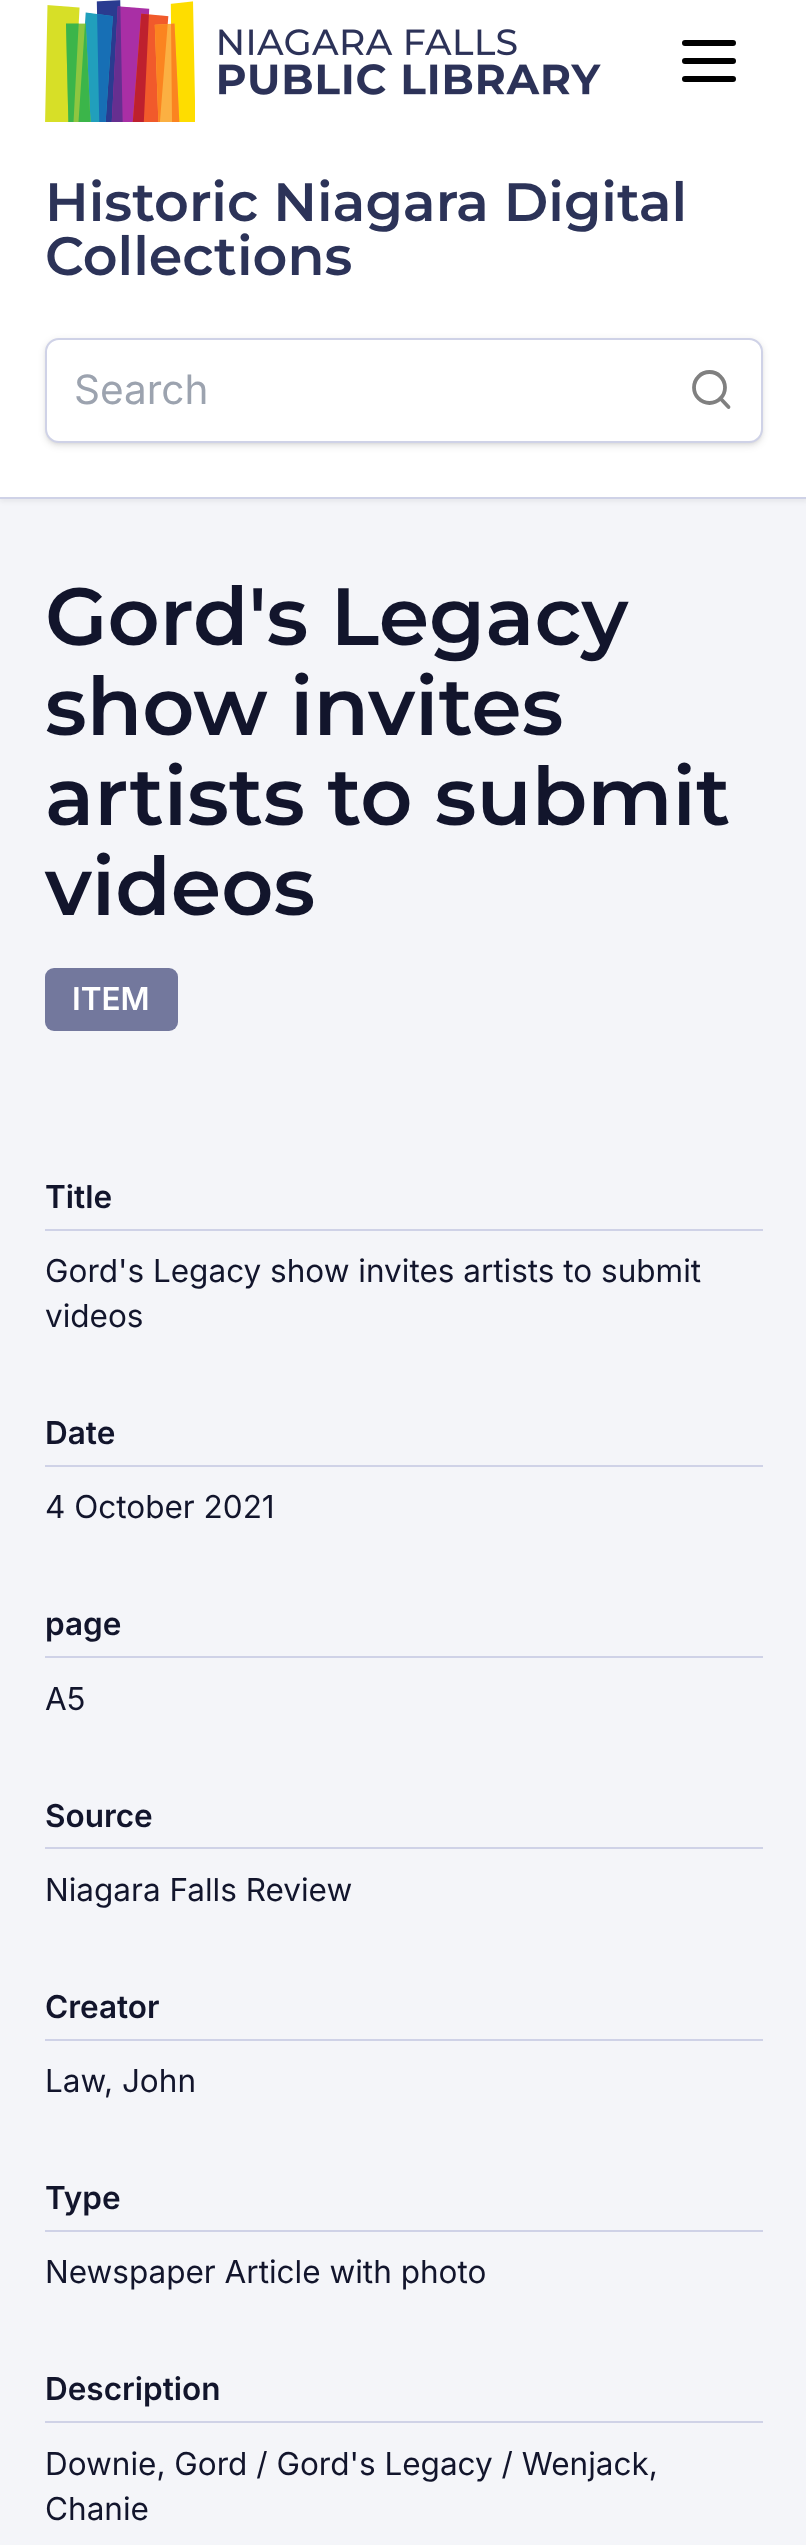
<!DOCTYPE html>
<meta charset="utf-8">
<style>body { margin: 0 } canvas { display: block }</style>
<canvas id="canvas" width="806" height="2545"></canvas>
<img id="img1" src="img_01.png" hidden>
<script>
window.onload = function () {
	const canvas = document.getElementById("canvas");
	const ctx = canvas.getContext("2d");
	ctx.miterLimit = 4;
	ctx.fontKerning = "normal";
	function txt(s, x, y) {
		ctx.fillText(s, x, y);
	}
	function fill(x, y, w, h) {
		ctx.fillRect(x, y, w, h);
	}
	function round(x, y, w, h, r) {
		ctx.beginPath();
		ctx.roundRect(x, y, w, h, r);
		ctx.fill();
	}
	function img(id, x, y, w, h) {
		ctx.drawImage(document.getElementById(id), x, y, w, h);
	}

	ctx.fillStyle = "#F4F5F9";
	fill(0, 0, 806, 2545);
	ctx.fillStyle = "rgba(0, 0, 0, 0.05)";
	ctx.filter = "blur(2px)";
	ctx.beginPath();
	ctx.rect(0, -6, 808, 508);
	ctx.fill();
	ctx.filter = "none";
	ctx.fillStyle = "#FFFFFF";
	fill(0, 0, 806, 497);
	ctx.fillStyle = "#CFD2E7";
	fill(0, 497, 806, 2);
	img("img1", 45, 0, 556, 122);
	ctx.beginPath();
	ctx.moveTo(685, 61);
	ctx.lineTo(733, 61);
	ctx.moveTo(685, 43);
	ctx.lineTo(733, 43);
	ctx.moveTo(685, 79);
	ctx.lineTo(733, 79);
	ctx.strokeStyle = "#000000";
	ctx.lineWidth = 6;
	ctx.lineCap = "round";
	ctx.lineJoin = "round";
	ctx.stroke();
	ctx.fillStyle = "rgba(0, 0, 0, 0.1)";
	ctx.filter = "blur(2px)";
	ctx.beginPath();
	ctx.roundRect(47, 342, 714, 101, 11);
	ctx.fill();
	ctx.filter = "none";
	ctx.filter = "blur(3.5px)";
	ctx.beginPath();
	ctx.roundRect(45, 340, 718, 106, 14);
	ctx.fill();
	ctx.filter = "none";
	ctx.fillStyle = "#FFFFFF";
	ctx.beginPath();
	ctx.roundRect(46, 339, 716, 103, 13);
	ctx.fill();
	ctx.strokeStyle = "#CFD2E7";
	ctx.lineWidth = 2;
	ctx.lineJoin = "miter";
	ctx.stroke();
	ctx.beginPath();
	ctx.arc(709.5, 387.5, 15.5, 0, Math.PI * 2);
	ctx.strokeStyle = "#808080";
	ctx.lineWidth = 3.8;
	ctx.stroke();
	ctx.beginPath();
	ctx.moveTo(728.5, 407);
	ctx.lineTo(720.5, 398.5);
	ctx.lineJoin = "round";
	ctx.stroke();
	ctx.fillStyle = "#73789D";
	round(45, 968, 133, 63, 9);
	ctx.fillStyle = "#CFD2E7";
	fill(45, 1229, 718, 2);
	fill(45, 1465, 718, 2);
	fill(45, 1656, 718, 2);
	fill(45, 1847, 718, 2);
	fill(45, 2039, 718, 2);
	fill(45, 2230, 718, 2);
	fill(45, 2421, 718, 2);
	ctx.font = "600 54px Montserrat";
	ctx.fillStyle = "#2C3358";
	txt("Historic Niagara Digital", 45, 221);
	txt("Collections", 45, 275);
	ctx.font = "40.5px Inter";
	ctx.fillStyle = "#9CA3AF";
	txt("Search", 74, 404);
	ctx.font = "600 81px Montserrat";
	ctx.fillStyle = "#12152C";
	txt("Gord's Legacy", 45, 645);
	txt("show invites", 45, 735);
	txt("artists to submit", 45, 825);
	txt("videos", 45, 915);
	ctx.font = "600 31.5px Inter";
	ctx.fillStyle = "#FFFFFF";
	txt("ITEM", 72, 1010);
	ctx.fillStyle = "#12152C";
	txt("Title", 45, 1208);
	ctx.font = "31.5px Inter";
	txt("Gord's Legacy show invites artists to submit", 45, 1282);
	txt("videos", 45, 1327);
	ctx.font = "600 31.5px Inter";
	txt("Date", 45, 1444);
	ctx.font = "31.5px Inter";
	txt("4 October 2021", 45, 1518);
	ctx.font = "600 31.5px Inter";
	txt("page", 45, 1635);
	ctx.font = "31.5px Inter";
	txt("A5", 45, 1710);
	ctx.font = "600 31.5px Inter";
	txt("Source", 45, 1827);
	ctx.font = "31.5px Inter";
	txt("Niagara Falls Review", 45, 1901);
	ctx.font = "600 31.5px Inter";
	txt("Creator", 45, 2018);
	ctx.font = "31.5px Inter";
	txt("Law, John", 45, 2092);
	ctx.font = "600 31.5px Inter";
	txt("Type", 45, 2209);
	ctx.font = "31.5px Inter";
	txt("Newspaper Article with photo", 45, 2283);
	ctx.font = "600 31.5px Inter";
	txt("Description", 45, 2400);
	ctx.font = "31.5px Inter";
	txt("Downie, Gord / Gord's Legacy / Wenjack,", 45, 2475);
	txt("Chanie", 45, 2520);
};
</script>
